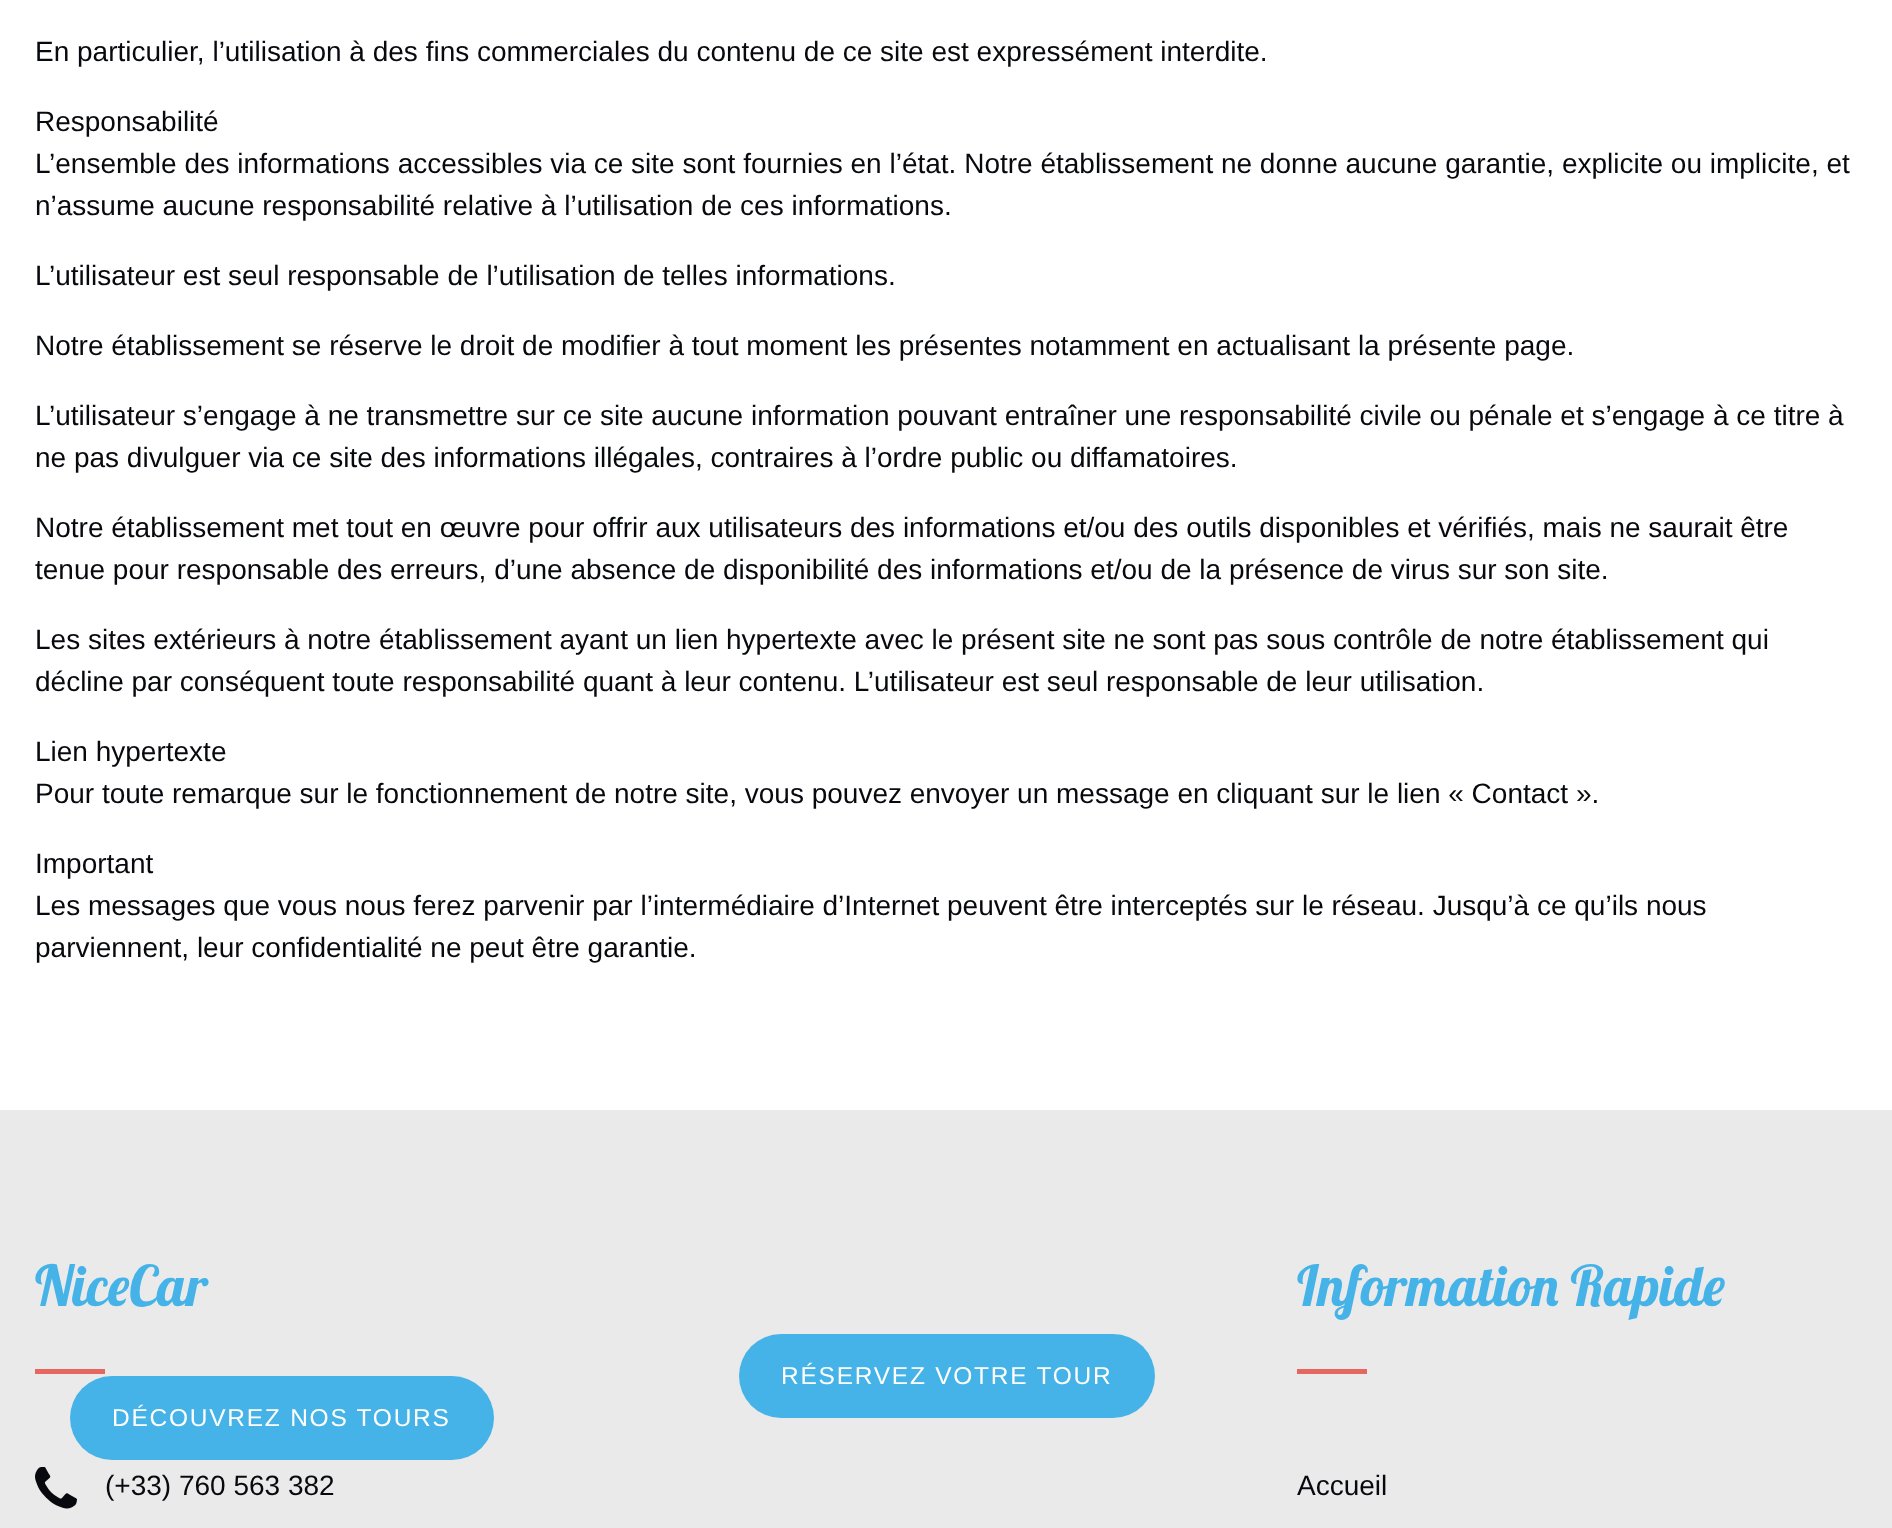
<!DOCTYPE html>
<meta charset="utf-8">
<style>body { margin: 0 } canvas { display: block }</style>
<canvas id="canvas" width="1892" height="1528"></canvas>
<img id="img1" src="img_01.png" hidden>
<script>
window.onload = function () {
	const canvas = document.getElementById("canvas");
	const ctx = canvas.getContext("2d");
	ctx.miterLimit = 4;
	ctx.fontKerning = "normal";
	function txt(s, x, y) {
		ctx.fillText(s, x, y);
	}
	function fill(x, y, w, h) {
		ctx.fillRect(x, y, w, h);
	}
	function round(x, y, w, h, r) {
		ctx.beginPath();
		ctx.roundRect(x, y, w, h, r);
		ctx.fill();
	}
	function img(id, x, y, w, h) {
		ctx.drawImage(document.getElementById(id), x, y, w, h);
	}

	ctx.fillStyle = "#FFFFFF";
	fill(0, 0, 1892, 1528);
	ctx.fillStyle = "#EAEAEA";
	fill(0, 1110, 1892, 418);
	ctx.fillStyle = "#E66760";
	fill(35, 1369, 70, 5);
	img("img1", 35, 1467, 42, 42);
	fill(1297, 1369, 70, 5);
	ctx.fillStyle = "#45B3E7";
	round(739, 1334, 416, 84, 42);
	round(70, 1376, 424, 84, 42);
	ctx.font = "28px Liberation Sans";
	ctx.fillStyle = "#08090E";
	txt("En particulier, l’utilisation à des fins commerciales du contenu de ce site est expressément interdite.", 35, 61);
	txt("Responsabilité", 35, 131);
	txt("L’ensemble des informations accessibles via ce site sont fournies en l’état. Notre établissement ne donne aucune garantie, explicite ou implicite, et", 35, 173);
	txt("n’assume aucune responsabilité relative à l’utilisation de ces informations.", 35, 215);
	txt("L’utilisateur est seul responsable de l’utilisation de telles informations.", 35, 285);
	txt("Notre établissement se réserve le droit de modifier à tout moment les présentes notamment en actualisant la présente page.", 35, 355);
	txt("L’utilisateur s’engage à ne transmettre sur ce site aucune information pouvant entraîner une responsabilité civile ou pénale et s’engage à ce titre à", 35, 425);
	txt("ne pas divulguer via ce site des informations illégales, contraires à l’ordre public ou diffamatoires.", 35, 467);
	txt("Notre établissement met tout en œuvre pour offrir aux utilisateurs des informations et/ou des outils disponibles et vérifiés, mais ne saurait être", 35, 537);
	txt("tenue pour responsable des erreurs, d’une absence de disponibilité des informations et/ou de la présence de virus sur son site.", 35, 579);
	txt("Les sites extérieurs à notre établissement ayant un lien hypertexte avec le présent site ne sont pas sous contrôle de notre établissement qui", 35, 649);
	txt("décline par conséquent toute responsabilité quant à leur contenu. L’utilisateur est seul responsable de leur utilisation.", 35, 691);
	txt("Lien hypertexte", 35, 761);
	txt("Pour toute remarque sur le fonctionnement de notre site, vous pouvez envoyer un message en cliquant sur le lien « Contact ».", 35, 803);
	txt("Important", 35, 873);
	txt("Les messages que vous nous ferez parvenir par l’intermédiaire d’Internet peuvent être interceptés sur le réseau. Jusqu’à ce qu’ils nous", 35, 915);
	txt("parviennent, leur confidentialité ne peut être garantie.", 35, 957);
	ctx.font = "56px Lobster";
	ctx.fillStyle = "#45B3E7";
	txt("NiceCar", 35, 1306);
	ctx.font = "28px Liberation Sans";
	ctx.fillStyle = "#08090E";
	txt("(+33) 760 563 382", 105, 1495);
	ctx.font = "56px Lobster";
	ctx.fillStyle = "#45B3E7";
	txt("Information Rapide", 1297, 1306);
	ctx.font = "28px Liberation Sans";
	ctx.fillStyle = "#08090E";
	txt("Accueil", 1297, 1495);
	ctx.letterSpacing = "1.75px";
	ctx.font = "24.5px Liberation Sans";
	ctx.fillStyle = "#FFFFFF";
	txt("RÉSERVEZ VOTRE TOUR", 781, 1384);
	txt("DÉCOUVREZ NOS TOURS", 112, 1426);
};
</script>
